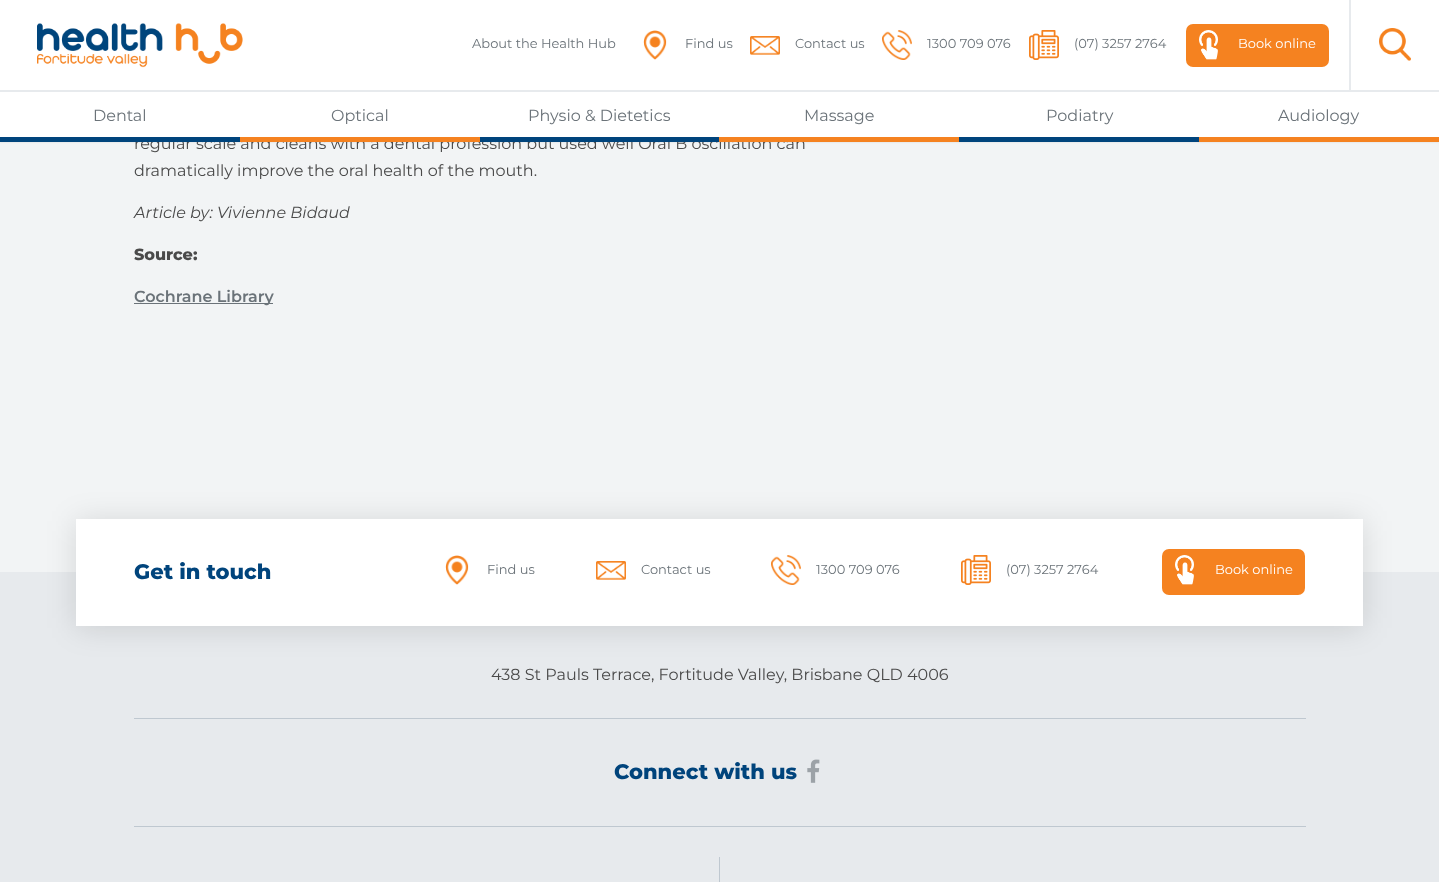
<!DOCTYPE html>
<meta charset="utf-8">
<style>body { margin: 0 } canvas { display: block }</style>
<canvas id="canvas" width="1439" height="882"></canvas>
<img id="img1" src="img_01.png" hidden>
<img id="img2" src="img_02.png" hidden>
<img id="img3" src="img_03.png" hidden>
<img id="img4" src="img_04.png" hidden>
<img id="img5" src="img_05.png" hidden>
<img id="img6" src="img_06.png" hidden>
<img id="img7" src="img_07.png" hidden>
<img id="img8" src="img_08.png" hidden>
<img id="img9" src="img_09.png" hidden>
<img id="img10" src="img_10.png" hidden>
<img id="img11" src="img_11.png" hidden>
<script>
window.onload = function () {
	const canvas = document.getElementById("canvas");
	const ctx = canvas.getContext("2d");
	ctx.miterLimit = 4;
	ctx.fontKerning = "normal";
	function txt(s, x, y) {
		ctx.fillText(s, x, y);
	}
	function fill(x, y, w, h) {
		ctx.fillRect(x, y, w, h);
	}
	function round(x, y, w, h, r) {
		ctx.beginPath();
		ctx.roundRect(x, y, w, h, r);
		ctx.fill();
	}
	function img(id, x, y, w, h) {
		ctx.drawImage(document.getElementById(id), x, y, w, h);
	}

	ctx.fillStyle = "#F2F4F5";
	fill(0, 0, 1439, 882);
	ctx.fillStyle = "rgba(119, 119, 119, 0.2)";
	ctx.filter = "blur(1px)";
	ctx.beginPath();
	ctx.rect(0, 2, 1439, 140);
	ctx.fill();
	ctx.filter = "none";
	ctx.fillStyle = "#FFFFFF";
	fill(0, 0, 1439, 137);
	img("img1", 37, 23, 206, 45);
	img("img2", 643, 30, 24, 30);
	img("img3", 750, 36, 30, 19);
	img("img4", 882, 30, 30, 30);
	img("img5", 1029, 30, 30, 30);
	ctx.fillStyle = "#F58220";
	round(1186, 24, 143, 43, 7);
	img("img6", 1199, 30, 19, 30);
	ctx.fillStyle = "#E7EAED";
	fill(1349, 0, 2, 90);
	img("img7", 1379, 28, 32, 33);
	fill(0, 90, 1439, 2);
	ctx.fillStyle = "#00447C";
	fill(959, 137, 240, 5);
	ctx.fillStyle = "#F58220";
	fill(1199, 137, 240, 5);
	ctx.fillStyle = "#6B7379";
	fill(134, 303, 139, 1);
	ctx.fillStyle = "#E7EAED";
	fill(0, 572, 1439, 310);
	ctx.fillStyle = "rgba(0, 0, 0, 0.12)";
	ctx.filter = "blur(15px)";
	ctx.beginPath();
	ctx.rect(76, 521, 1287, 107);
	ctx.fill();
	ctx.filter = "none";
	ctx.fillStyle = "#FFFFFF";
	fill(76, 519, 1287, 107);
	img("img2", 445, 555, 24, 30);
	img("img8", 596, 561, 30, 19);
	img("img9", 771, 555, 30, 30);
	img("img5", 961, 555, 30, 30);
	ctx.fillStyle = "#F58220";
	round(1162, 549, 143, 46, 7);
	img("img10", 1175, 555, 19, 30);
	ctx.fillStyle = "#BFC8D0";
	fill(134, 718, 1172, 1);
	img("img11", 807, 759, 13, 24);
	fill(134, 826, 1172, 1);
	fill(719, 857, 1, 25);
	ctx.font = "13px Montserrat";
	ctx.fillStyle = "#6B7379";
	txt("About the Health Hub", 472, 48);
	txt("Find us", 685, 48);
	txt("Contact us", 795, 48);
	txt("1300 709 076", 927, 48);
	txt("(07) 3257 2764", 1074, 48);
	ctx.fillStyle = "#FFFFFF";
	txt("Book online", 1238, 48);
	ctx.font = "16px Montserrat";
	ctx.fillStyle = "#6B7379";
	txt("Dental", 93, 121);
	txt("Optical", 331, 121);
	txt("Physio & Dietetics", 528, 121);
	txt("Massage", 804, 121);
	txt("Podiatry", 1046, 121);
	txt("Audiology", 1278, 121);
	ctx.fillStyle = "#4A4A4A";
	txt("regular scale and cleans with a dental profession but used well Oral B oscillation can", 134, 149);
	ctx.fillStyle = "#F58220";
	fill(719, 137, 240, 5);
	ctx.fillStyle = "#00447C";
	fill(480, 137, 239, 5);
	ctx.fillStyle = "#F58220";
	fill(240, 137, 240, 5);
	ctx.fillStyle = "#00447C";
	fill(0, 137, 240, 5);
	ctx.fillStyle = "#4A4A4A";
	txt("dramatically improve the oral health of the mouth.", 134, 176);
	ctx.font = "italic 100 16px Montserrat";
	txt("Article by: Vivienne Bidaud", 134, 218);
	ctx.font = "800 16px Montserrat";
	txt("Source:", 134, 260);
	ctx.font = "600 16px Montserrat";
	ctx.fillStyle = "#6B7379";
	txt("Cochrane Library", 134, 302);
	ctx.font = "800 21px Montserrat";
	ctx.fillStyle = "#00447C";
	txt("Get in touch", 134, 579);
	ctx.font = "13px Montserrat";
	ctx.fillStyle = "#6B7379";
	txt("Find us", 487, 574);
	txt("Contact us", 641, 574);
	txt("1300 709 076", 816, 574);
	txt("(07) 3257 2764", 1006, 574);
	ctx.fillStyle = "#FFFFFF";
	txt("Book online", 1215, 574);
	ctx.font = "16px Montserrat";
	ctx.fillStyle = "#4A4A4A";
	txt("438 St Pauls Terrace, Fortitude Valley, Brisbane QLD 4006", 491, 680);
	ctx.font = "800 21px Montserrat";
	ctx.fillStyle = "#00447C";
	txt("Connect with us", 614, 779);
};
</script>
